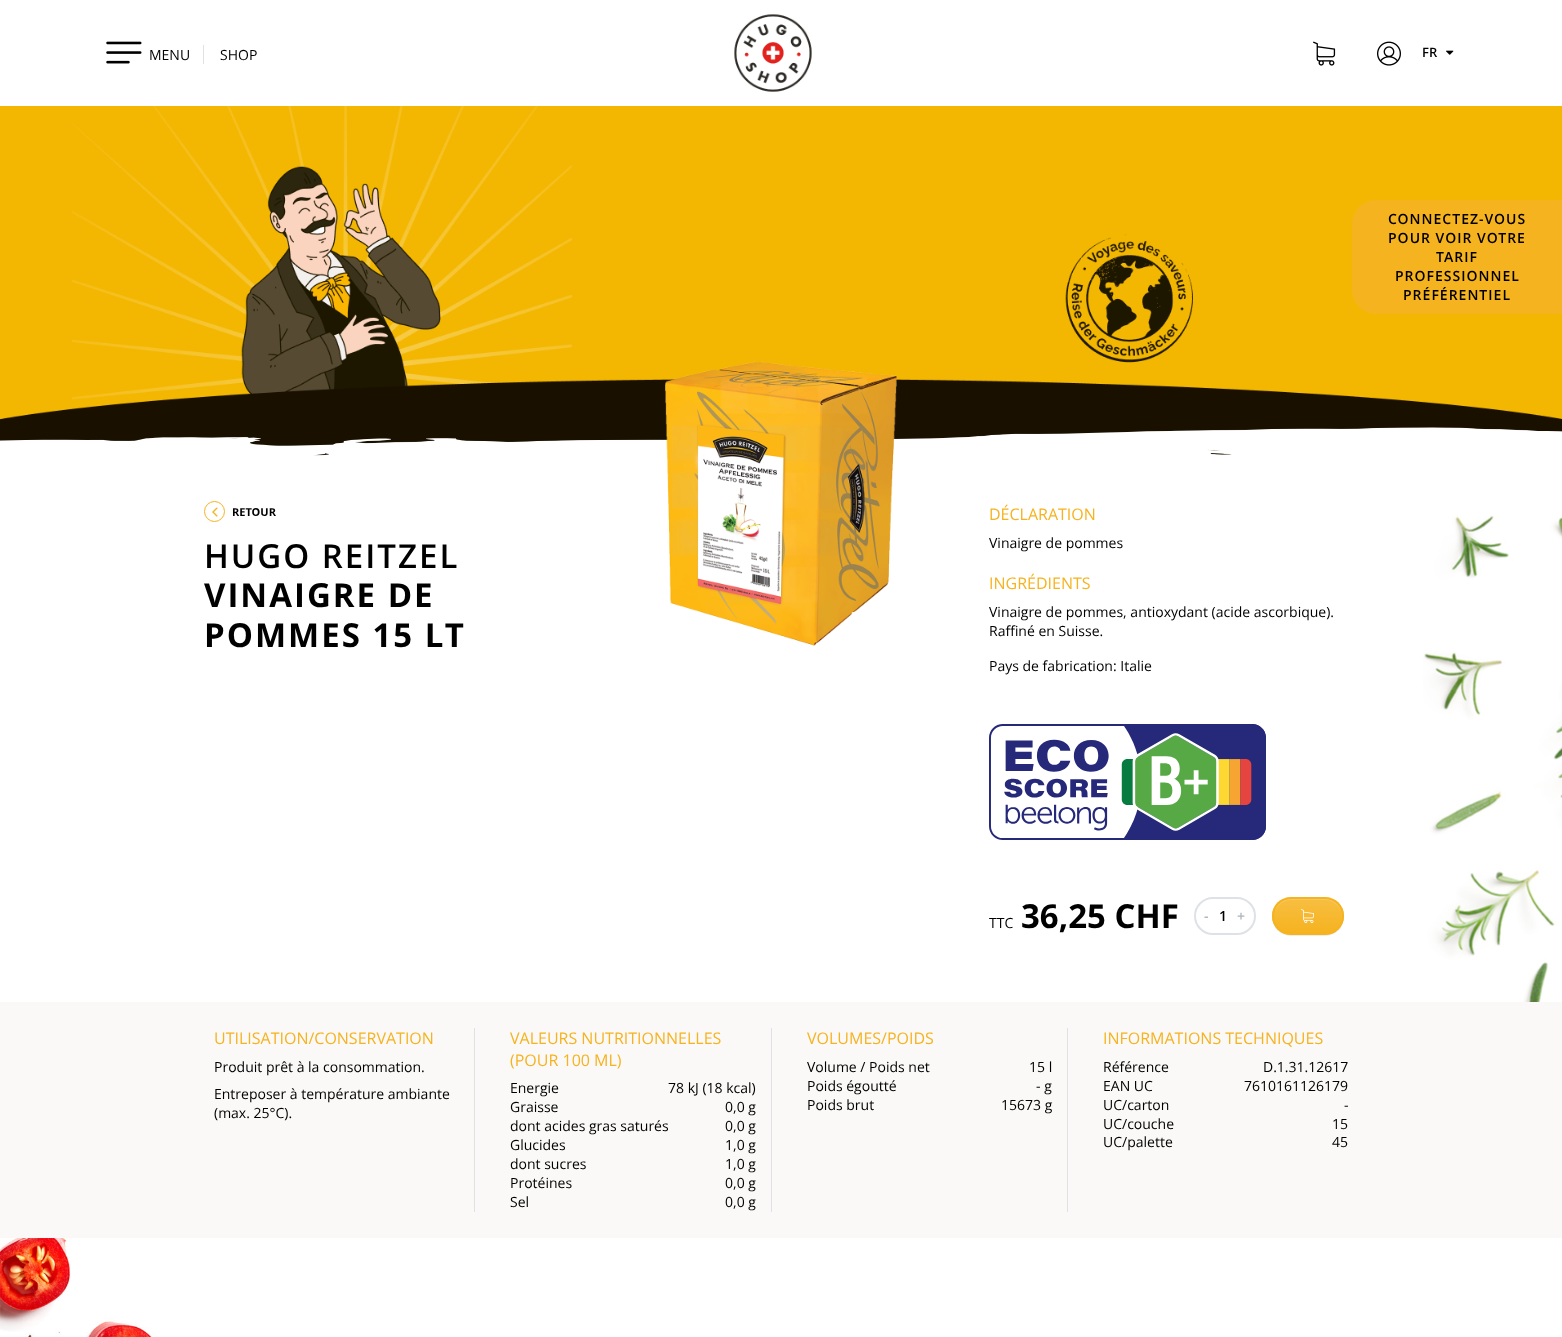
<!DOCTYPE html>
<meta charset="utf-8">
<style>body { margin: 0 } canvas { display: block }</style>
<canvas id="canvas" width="1562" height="1337"></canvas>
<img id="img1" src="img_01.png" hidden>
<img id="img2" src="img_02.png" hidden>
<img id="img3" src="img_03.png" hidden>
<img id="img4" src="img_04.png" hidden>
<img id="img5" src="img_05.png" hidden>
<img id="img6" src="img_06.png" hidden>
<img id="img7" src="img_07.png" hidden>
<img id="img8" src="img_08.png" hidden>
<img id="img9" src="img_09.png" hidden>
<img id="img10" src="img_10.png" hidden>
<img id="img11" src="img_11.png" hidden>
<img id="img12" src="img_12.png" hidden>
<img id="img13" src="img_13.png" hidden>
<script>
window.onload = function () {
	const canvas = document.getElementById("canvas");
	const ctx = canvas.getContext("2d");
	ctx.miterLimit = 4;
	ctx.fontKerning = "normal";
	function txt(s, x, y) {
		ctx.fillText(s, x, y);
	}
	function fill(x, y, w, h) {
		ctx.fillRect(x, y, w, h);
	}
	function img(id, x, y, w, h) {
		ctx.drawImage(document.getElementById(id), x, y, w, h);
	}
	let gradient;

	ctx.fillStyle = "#FFFFFF";
	fill(0, 0, 1562, 1337);
	img("img1", 106, 41, 36, 23);
	ctx.fillStyle = "#DEE2E6";
	fill(203, 45, 1, 19);
	img("img2", 734, 14, 78, 78);
	img("img3", 1313, 41, 23, 25);
	img("img4", 1377, 41, 24, 25);
	img("img5", 1446, 50, 8, 5);
	img("img6", 0, 106, 1562, 350);
	img("img7", 0, 427, 1562, 29);
	ctx.fillStyle = "#F6B320";
	ctx.beginPath();
	ctx.roundRect(1352, 200, 210, 114, [24, 0, 0, 24]);
	ctx.fill();
	img("img8", 1423, 515, 139, 487);
	img("img9", 665, 361, 232, 285);
	img("img10", 989, 724, 277, 116);
	ctx.beginPath();
	ctx.roundRect(1195, 898, 60, 36, 18);
	ctx.strokeStyle = "#DEE2E6";
	ctx.lineWidth = 2;
	ctx.stroke();
	ctx.fillStyle = "rgba(0, 0, 0, 0.07)";
	ctx.filter = "blur(0.5px)";
	ctx.beginPath();
	ctx.roundRect(1272, 898, 72, 38, 19);
	ctx.fill();
	ctx.filter = "none";
	ctx.save();
	ctx.beginPath();
	ctx.roundRect(1272, 897, 72, 38, 19);
	ctx.clip();
	gradient = ctx.createLinearGradient(1308, 899, 1308, 933);
	gradient.addColorStop(0, "#F7BE41");
	gradient.addColorStop(1, "#F6B320");
	ctx.fillStyle = gradient;
	fill(1272, 899, 72, 34);
	ctx.restore();
	ctx.fillStyle = "rgba(255, 255, 255, 0.15)";
	ctx.beginPath();
	ctx.moveTo(1291, 900);
	ctx.lineTo(1325, 900);
	ctx.bezierCurveTo(1334, 900, 1342, 908, 1342, 917);
	ctx.bezierCurveTo(1342, 913, 1341, 909, 1339, 906);
	ctx.bezierCurveTo(1332, 896, 1319, 899, 1308, 899);
	ctx.bezierCurveTo(1297, 899, 1284, 896, 1277, 906);
	ctx.bezierCurveTo(1275, 909, 1274, 913, 1274, 917);
	ctx.bezierCurveTo(1274, 908, 1282, 900, 1291, 900);
	ctx.closePath();
	ctx.fill();
	ctx.beginPath();
	ctx.roundRect(1273, 898, 70, 36, 18);
	ctx.strokeStyle = "#F6B320";
	ctx.stroke();
	img("img11", 1301, 909, 13, 15);
	ctx.beginPath();
	ctx.arc(214.5, 511.5, 10, 0, Math.PI * 2);
	ctx.lineWidth = 1;
	ctx.stroke();
	img("img12", 212, 507, 6, 10);
	ctx.fillStyle = "#FAF9F7";
	fill(0, 1002, 1562, 236);
	ctx.fillStyle = "#DEE2E6";
	fill(474, 1028, 1, 184);
	fill(771, 1028, 1, 184);
	fill(1067, 1028, 1, 184);
	img("img13", 0, 1238, 155, 99);
	ctx.font = "14px Open Sans";
	ctx.fillStyle = "#000000";
	txt("MENU", 149, 60);
	txt("SHOP", 220, 60);
	ctx.font = "600 13px Open Sans";
	txt("FR", 1422, 57);
	ctx.letterSpacing = "1px";
	ctx.font = "600 14px Open Sans";
	txt("CONNECTEZ-VOUS", 1388, 224);
	txt("POUR VOIR VOTRE", 1388, 243);
	txt("TARIF", 1436, 262);
	txt("PROFESSIONNEL", 1395, 281);
	txt("PRÉFÉRENTIEL", 1403, 300);
	ctx.letterSpacing = "2px";
	ctx.font = "600 33px Open Sans";
	txt("HUGO REITZEL", 204, 568);
	ctx.font = "bold 33px Open Sans";
	txt("VINAIGRE DE", 204, 607);
	txt("POMMES 15 LT", 204, 647);
	ctx.letterSpacing = "0px";
	ctx.font = "16px Open Sans";
	ctx.fillStyle = "#F6B320";
	txt("DÉCLARATION", 989, 520);
	ctx.font = "14px Open Sans";
	ctx.fillStyle = "#000000";
	txt("Vinaigre de pommes", 989, 548);
	ctx.font = "16px Open Sans";
	ctx.fillStyle = "#F6B320";
	txt("INGRÉDIENTS", 989, 589);
	ctx.font = "14px Open Sans";
	ctx.fillStyle = "#000000";
	txt("Vinaigre de pommes, antioxydant (acide ascorbique).", 989, 617);
	txt("Raffiné en Suisse.", 989, 636);
	txt("Pays de fabrication: Italie", 989, 671);
	txt("TTC", 989, 928);
	ctx.font = "bold 33px Open Sans";
	txt("36,25 CHF", 1021, 928);
	ctx.letterSpacing = "1px";
	ctx.font = "600 14px Open Sans";
	ctx.fillStyle = "#ADB5BD";
	txt("-", 1204, 921);
	ctx.fillStyle = "#000000";
	txt("1", 1219, 921);
	ctx.fillStyle = "#ADB5BD";
	txt("+", 1237, 921);
	ctx.letterSpacing = "0px";
	ctx.font = "bold 11px Open Sans";
	ctx.fillStyle = "#000000";
	txt("RETOUR", 232, 516);
	ctx.font = "16px Open Sans";
	ctx.fillStyle = "#F6B320";
	txt("UTILISATION/CONSERVATION", 214, 1044);
	ctx.font = "14px Open Sans";
	ctx.fillStyle = "#000000";
	txt("Produit prêt à la consommation.", 214, 1072);
	txt("Entreposer à température ambiante", 214, 1099);
	txt("(max. 25°C).", 214, 1118);
	ctx.font = "16px Open Sans";
	ctx.fillStyle = "#F6B320";
	txt("VALEURS NUTRITIONNELLES", 510, 1044);
	txt("(POUR 100 ML)", 510, 1066);
	ctx.font = "14px Open Sans";
	ctx.fillStyle = "#000000";
	txt("Energie", 510, 1093);
	txt("78 kJ (18 kcal)", 668, 1093);
	txt("Graisse", 510, 1112);
	txt("0,0 g", 725, 1112);
	txt("dont acides gras saturés", 510, 1131);
	txt("0,0 g", 725, 1131);
	txt("Glucides", 510, 1150);
	txt("1,0 g", 725, 1150);
	txt("dont sucres", 510, 1169);
	txt("1,0 g", 725, 1169);
	txt("Protéines", 510, 1188);
	txt("0,0 g", 725, 1188);
	txt("Sel", 510, 1207);
	txt("0,0 g", 725, 1207);
	ctx.font = "16px Open Sans";
	ctx.fillStyle = "#F6B320";
	txt("VOLUMES/POIDS", 807, 1044);
	ctx.font = "14px Open Sans";
	ctx.fillStyle = "#000000";
	txt("Volume / Poids net", 807, 1072);
	txt("15 l", 1029, 1072);
	txt("Poids égoutté", 807, 1091);
	txt("- g", 1036, 1091);
	txt("Poids brut", 807, 1110);
	txt("15673 g", 1001, 1110);
	ctx.font = "16px Open Sans";
	ctx.fillStyle = "#F6B320";
	txt("INFORMATIONS TECHNIQUES", 1103, 1044);
	ctx.font = "14px Open Sans";
	ctx.fillStyle = "#000000";
	txt("Référence", 1103, 1072);
	txt("D.1.31.12617", 1263, 1072);
	txt("EAN UC", 1103, 1091);
	txt("7610161126179", 1244, 1091);
	txt("UC/carton", 1103, 1110);
	txt("-", 1344, 1110);
	txt("UC/couche", 1103, 1129);
	txt("15", 1332, 1129);
	txt("UC/palette", 1103, 1147);
	txt("45", 1332, 1147);
};
</script>
